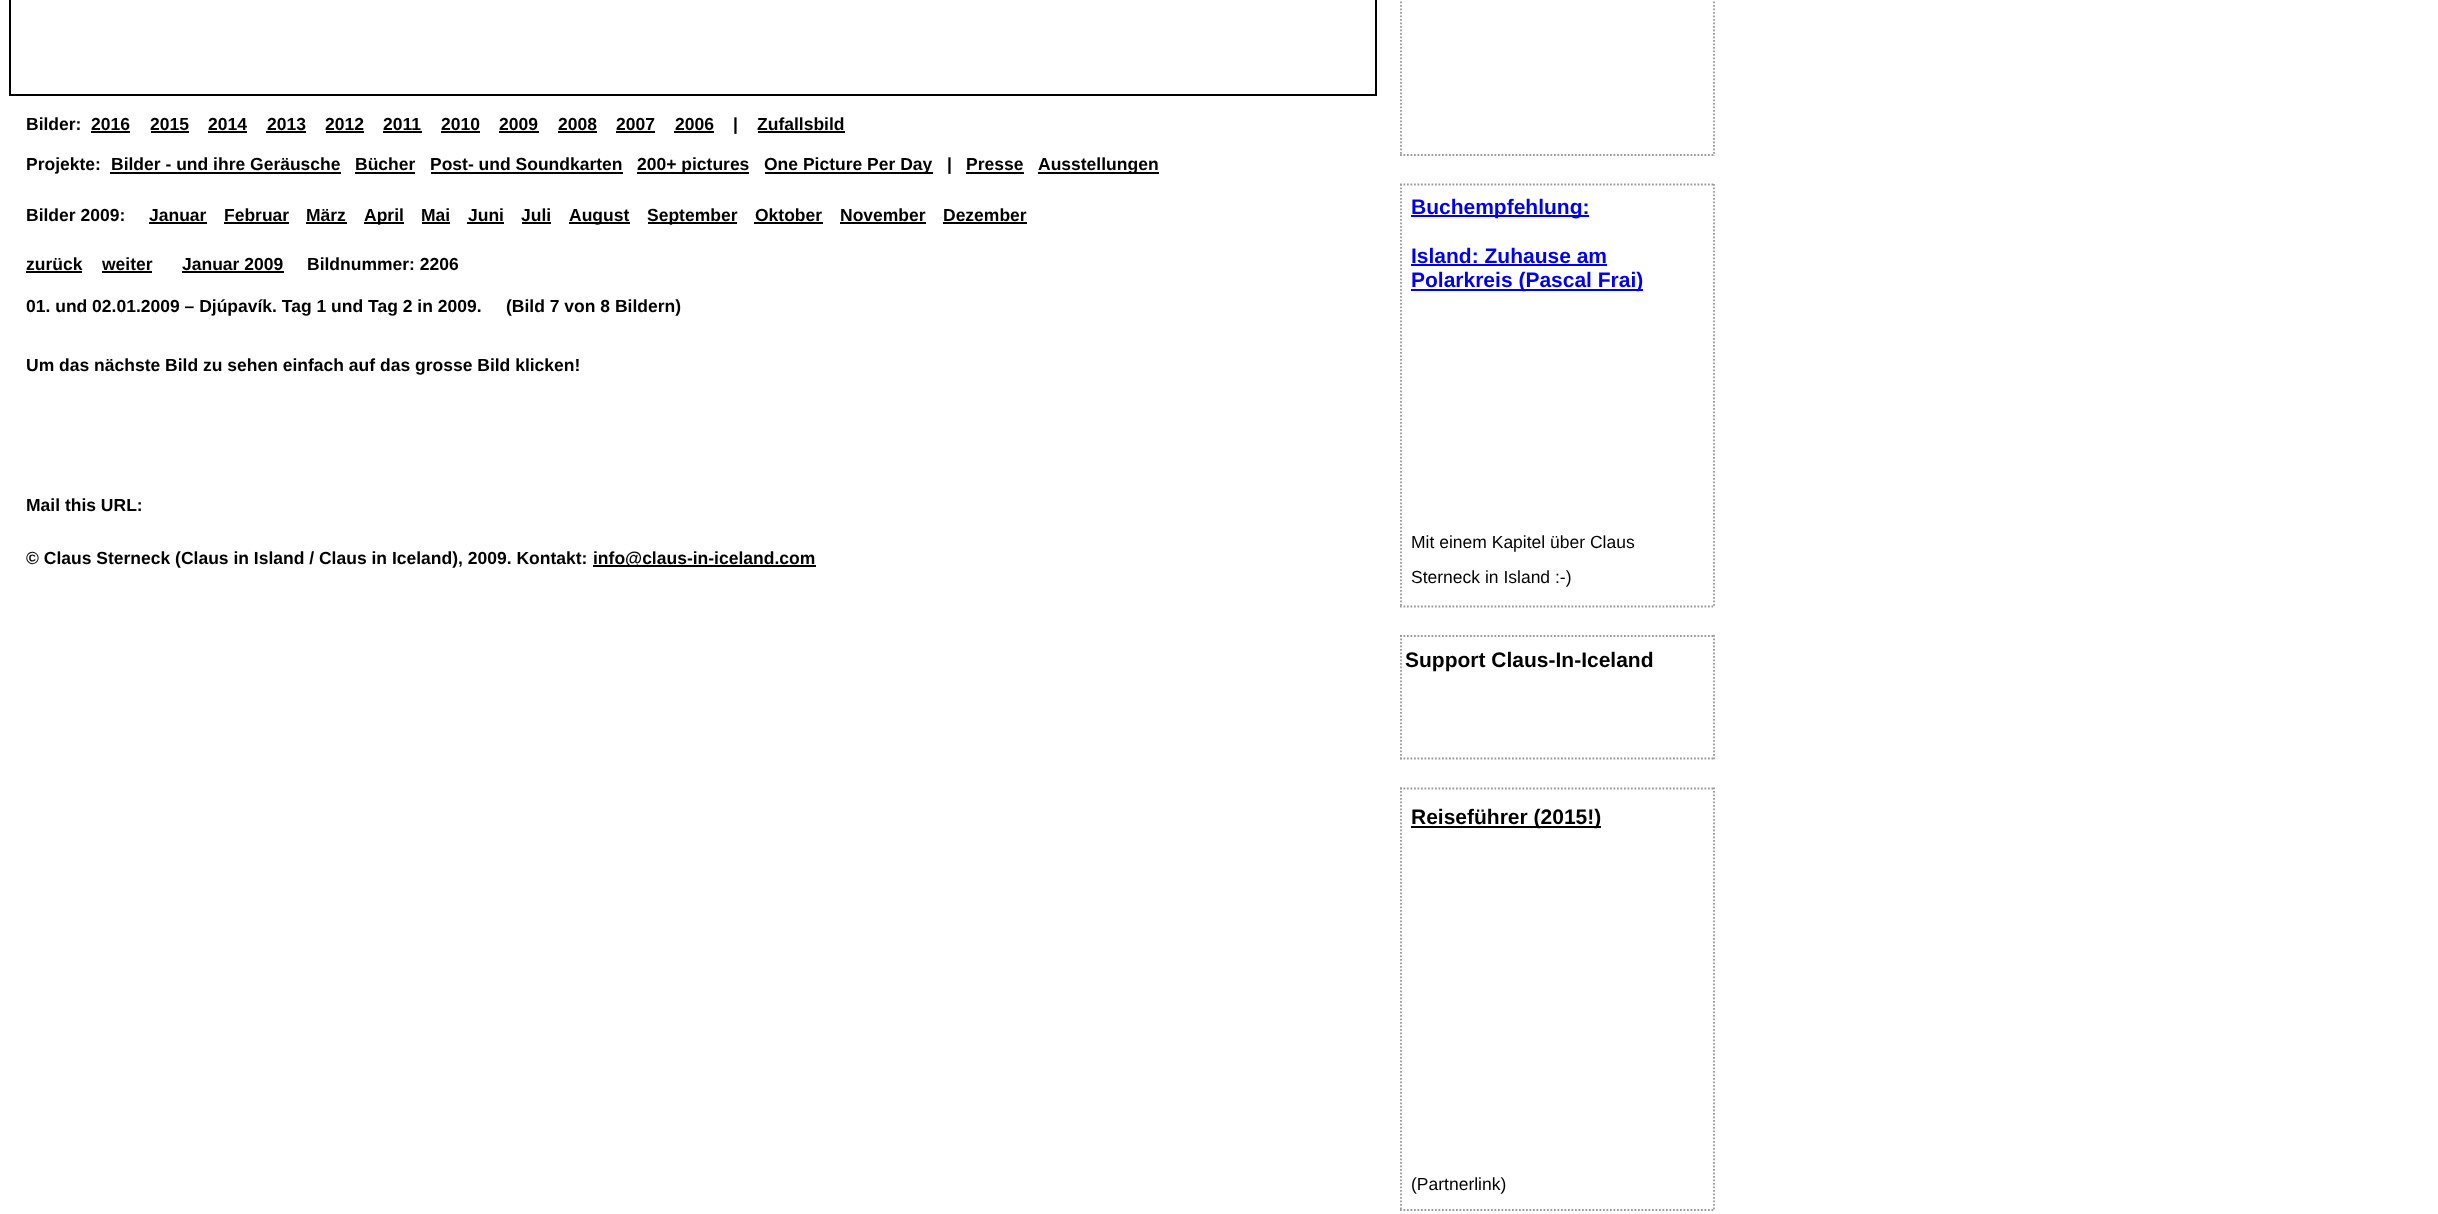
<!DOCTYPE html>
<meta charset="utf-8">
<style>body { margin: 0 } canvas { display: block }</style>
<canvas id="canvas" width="2438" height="1214"></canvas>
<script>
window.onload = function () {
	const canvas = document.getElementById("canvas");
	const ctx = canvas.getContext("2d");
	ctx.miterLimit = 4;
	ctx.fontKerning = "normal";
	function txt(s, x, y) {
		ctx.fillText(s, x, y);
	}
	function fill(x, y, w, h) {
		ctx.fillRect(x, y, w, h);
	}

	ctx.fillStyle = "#FFFFFF";
	fill(0, 0, 2438, 1214);
	ctx.strokeStyle = "#000000";
	ctx.lineWidth = 2;
	ctx.strokeRect(10, -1, 1366, 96);
	ctx.fillStyle = "#000000";
	fill(91, 131, 39, 2);
	fill(151, 131, 38, 2);
	fill(208, 131, 39, 2);
	fill(266, 131, 40, 2);
	fill(326, 131, 38, 2);
	fill(383, 131, 39, 2);
	fill(441, 131, 39, 2);
	fill(499, 131, 40, 2);
	fill(558, 131, 39, 2);
	fill(616, 131, 39, 2);
	fill(674, 131, 40, 2);
	fill(758, 131, 87, 2);
	fill(110, 172, 231, 2);
	fill(355, 172, 60, 2);
	fill(431, 172, 192, 2);
	fill(637, 172, 112, 2);
	fill(765, 172, 168, 2);
	fill(966, 172, 58, 2);
	fill(1038, 172, 121, 2);
	fill(149, 222, 58, 2);
	fill(224, 222, 65, 2);
	fill(306, 222, 41, 2);
	fill(364, 222, 40, 2);
	fill(422, 222, 28, 2);
	fill(467, 222, 37, 2);
	fill(522, 222, 29, 2);
	fill(569, 222, 61, 2);
	fill(648, 222, 89, 2);
	fill(754, 222, 69, 2);
	fill(840, 222, 86, 2);
	fill(943, 222, 84, 2);
	ctx.beginPath();
	ctx.moveTo(1714, -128);
	ctx.lineTo(1714, 156);
	ctx.strokeStyle = "#999999";
	ctx.lineWidth = 1.8;
	ctx.setLineDash([1.75, 1.75]);
	ctx.stroke();
	ctx.beginPath();
	ctx.moveTo(1400, 155);
	ctx.lineTo(1715, 155);
	ctx.stroke();
	ctx.beginPath();
	ctx.moveTo(1401, -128);
	ctx.lineTo(1401, 156);
	ctx.stroke();
	ctx.beginPath();
	ctx.moveTo(1400, 184.5);
	ctx.lineTo(1715, 184.5);
	ctx.stroke();
	ctx.beginPath();
	ctx.moveTo(1714, 184);
	ctx.lineTo(1714, 607);
	ctx.stroke();
	ctx.beginPath();
	ctx.moveTo(1400, 606.5);
	ctx.lineTo(1715, 606.5);
	ctx.stroke();
	ctx.beginPath();
	ctx.moveTo(1401, 184);
	ctx.lineTo(1401, 607);
	ctx.stroke();
	ctx.fillStyle = "#0000EE";
	fill(1411, 215, 178, 2);
	fill(1411, 264, 196, 2);
	fill(1411, 289, 232, 2);
	ctx.beginPath();
	ctx.moveTo(1400, 636);
	ctx.lineTo(1715, 636);
	ctx.stroke();
	ctx.beginPath();
	ctx.moveTo(1714, 635);
	ctx.lineTo(1714, 759.5);
	ctx.stroke();
	ctx.beginPath();
	ctx.moveTo(1400, 758.5);
	ctx.lineTo(1715, 758.5);
	ctx.stroke();
	ctx.beginPath();
	ctx.moveTo(1401, 635);
	ctx.lineTo(1401, 759.5);
	ctx.stroke();
	ctx.beginPath();
	ctx.moveTo(1400, 788.5);
	ctx.lineTo(1715, 788.5);
	ctx.stroke();
	ctx.beginPath();
	ctx.moveTo(1714, 787.5);
	ctx.lineTo(1714, 1211);
	ctx.stroke();
	ctx.beginPath();
	ctx.moveTo(1400, 1210);
	ctx.lineTo(1715, 1210);
	ctx.stroke();
	ctx.beginPath();
	ctx.moveTo(1401, 787.5);
	ctx.lineTo(1401, 1211);
	ctx.stroke();
	ctx.fillStyle = "#000000";
	fill(1411, 826, 190, 2);
	fill(26, 271, 56, 2);
	fill(102, 271, 50, 2);
	fill(182, 271, 102, 2);
	fill(593, 565, 223, 2);
	ctx.font = "bold 17.5px Liberation Sans";
	txt("Bilder:", 26, 130);
	txt("2016", 91, 130);
	txt("2015", 150, 130);
	txt("2014", 208, 130);
	txt("2013", 267, 130);
	txt("2012", 325, 130);
	txt("2011", 383, 130);
	txt("2010", 441, 130);
	txt("2009", 499, 130);
	txt("2008", 558, 130);
	txt("2007", 616, 130);
	txt("2006", 675, 130);
	txt("|", 733, 130);
	txt("Zufallsbild", 757, 130);
	txt("Projekte:", 26, 170);
	txt("Bilder - und ihre Geräusche", 111, 170);
	txt("Bücher", 355, 170);
	txt("Post- und Soundkarten", 430, 170);
	txt("200+ pictures", 637, 170);
	txt("One Picture Per Day", 764, 170);
	txt("|", 947, 170);
	txt("Presse", 966, 170);
	txt("Ausstellungen", 1038, 170);
	txt("Bilder 2009:", 26, 221);
	txt("Januar", 149, 221);
	txt("Februar", 224, 221);
	txt("März", 306, 221);
	txt("April", 364, 221);
	txt("Mai", 421, 221);
	txt("Juni", 468, 221);
	txt("Juli", 521, 221);
	txt("August", 569, 221);
	txt("September", 647, 221);
	txt("Oktober", 755, 221);
	txt("November", 840, 221);
	txt("Dezember", 943, 221);
	ctx.font = "bold 21px Liberation Sans";
	ctx.fillStyle = "#0000EE";
	txt("Buchempfehlung:", 1411, 214);
	txt("Island: Zuhause am", 1411, 263);
	txt("Polarkreis (Pascal Frai)", 1411, 287);
	ctx.font = "17.5px Liberation Sans";
	ctx.fillStyle = "#000000";
	txt("Mit einem Kapitel über Claus", 1411, 548);
	txt("Sterneck in Island :-)", 1411, 583);
	ctx.font = "bold 21px Liberation Sans";
	txt("Support Claus-In-Iceland", 1405, 667);
	txt("Reiseführer (2015!)", 1411, 824);
	ctx.font = "17.5px Liberation Sans";
	txt("(Partnerlink)", 1411, 1190);
	ctx.font = "bold 17.5px Liberation Sans";
	txt("zurück", 26, 270);
	txt("weiter", 102, 270);
	txt("Januar 2009", 182, 270);
	txt("Bildnummer: 2206", 307, 270);
	txt("01. und 02.01.2009 – Djúpavík. Tag 1 und Tag 2 in 2009.", 26, 312);
	txt("(Bild 7 von 8 Bildern)", 506, 312);
	txt("Um das nächste Bild zu sehen einfach auf das grosse Bild klicken!", 26, 371);
	txt("Mail this URL:", 26, 511);
	txt("© Claus Sterneck (Claus in Island / Claus in Iceland), 2009. Kontakt:", 26, 564);
	txt("info@claus-in-iceland.com", 593, 564);
};
</script>
